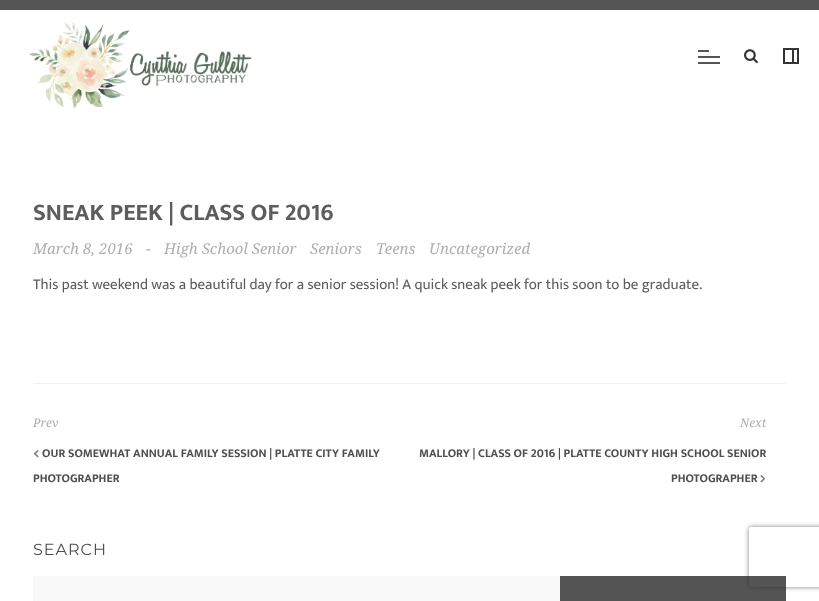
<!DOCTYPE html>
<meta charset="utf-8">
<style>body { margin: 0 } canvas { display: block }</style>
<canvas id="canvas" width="819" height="601"></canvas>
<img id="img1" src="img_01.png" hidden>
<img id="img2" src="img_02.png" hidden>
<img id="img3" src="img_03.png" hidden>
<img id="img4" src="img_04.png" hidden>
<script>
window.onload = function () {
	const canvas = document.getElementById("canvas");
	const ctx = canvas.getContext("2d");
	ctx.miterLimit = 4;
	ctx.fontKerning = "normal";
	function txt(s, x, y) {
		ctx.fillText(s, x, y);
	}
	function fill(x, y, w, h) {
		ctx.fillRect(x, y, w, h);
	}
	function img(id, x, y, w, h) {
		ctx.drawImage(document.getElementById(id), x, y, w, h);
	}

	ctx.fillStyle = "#FFFFFF";
	fill(0, 0, 819, 601);
	ctx.fillStyle = "#555555";
	fill(0, 0, 819, 10);
	img("img1", 29, 22, 223, 87);
	fill(698, 50, 11, 2);
	fill(698, 56, 22, 2);
	fill(698, 62, 22, 2);
	img("img2", 744, 49, 14, 15);
	ctx.strokeStyle = "#343434";
	ctx.lineWidth = 2;
	ctx.strokeRect(784, 49, 14, 14);
	ctx.fillStyle = "#343434";
	fill(792, 50, 2, 12);
	ctx.fillStyle = "#F1F1F1";
	fill(33, 383, 753, 1);
	img("img3", 33, 450, 6, 8);
	img("img4", 760, 475, 6, 8);
	ctx.fillStyle = "#F9F9F9";
	fill(33, 576, 527, 25);
	ctx.save();
	ctx.beginPath();
	ctx.moveTo(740, 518);
	ctx.lineTo(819, 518);
	ctx.lineTo(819, 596);
	ctx.lineTo(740, 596);
	ctx.closePath();
	ctx.moveTo(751, 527);
	ctx.lineTo(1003, 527);
	ctx.bezierCurveTo(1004, 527, 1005, 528, 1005, 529);
	ctx.lineTo(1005, 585);
	ctx.bezierCurveTo(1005, 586, 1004, 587, 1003, 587);
	ctx.lineTo(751, 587);
	ctx.bezierCurveTo(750, 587, 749, 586, 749, 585);
	ctx.lineTo(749, 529);
	ctx.bezierCurveTo(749, 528, 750, 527, 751, 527);
	ctx.closePath();
	ctx.clip("evenodd");
	ctx.fillStyle = "#808080";
	ctx.filter = "blur(2.5px)";
	ctx.beginPath();
	ctx.roundRect(749, 527, 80, 60, 2);
	ctx.fill();
	ctx.filter = "none";
	ctx.restore();
	ctx.fillStyle = "rgba(41, 41, 41, 0.8)";
	fill(560, 576, 226, 25);
	ctx.font = "bold 24px Ek Mukta";
	ctx.fillStyle = "#5D5D5D";
	txt("SNEAK PEEK | CLASS OF 2016", 33, 220);
	ctx.font = "italic 15px Droid Serif";
	ctx.fillStyle = "#AEAEAE";
	txt("March 8, 2016", 33, 254);
	txt("-", 146, 254);
	txt("High School Senior", 164, 254);
	txt("Seniors", 310, 254);
	txt("Teens", 376, 254);
	txt("Uncategorized", 429, 254);
	ctx.font = "15px Ek Mukta";
	ctx.fillStyle = "#5D5D5D";
	txt("This past weekend was a beautiful day for a senior session! A quick sneak peek for this soon to be graduate.", 33, 289);
	ctx.font = "italic 12px Droid Serif";
	ctx.fillStyle = "#AEAEAE";
	txt("Prev", 33, 427);
	ctx.font = "bold 12px Ek Mukta";
	ctx.fillStyle = "#4F4F4F";
	txt("OUR SOMEWHAT ANNUAL FAMILY SESSION | PLATTE CITY FAMILY", 42, 457);
	txt("PHOTOGRAPHER", 33, 482);
	ctx.font = "italic 12px Droid Serif";
	ctx.fillStyle = "#AEAEAE";
	txt("Next", 740, 427);
	ctx.font = "bold 12px Ek Mukta";
	ctx.fillStyle = "#4F4F4F";
	txt("MALLORY | CLASS OF 2016 | PLATTE COUNTY HIGH SCHOOL SENIOR", 419, 457);
	txt("PHOTOGRAPHER", 671, 482);
	ctx.letterSpacing = "1px";
	ctx.font = "16px Montserrat";
	txt("SEARCH", 33, 555);
};
</script>
